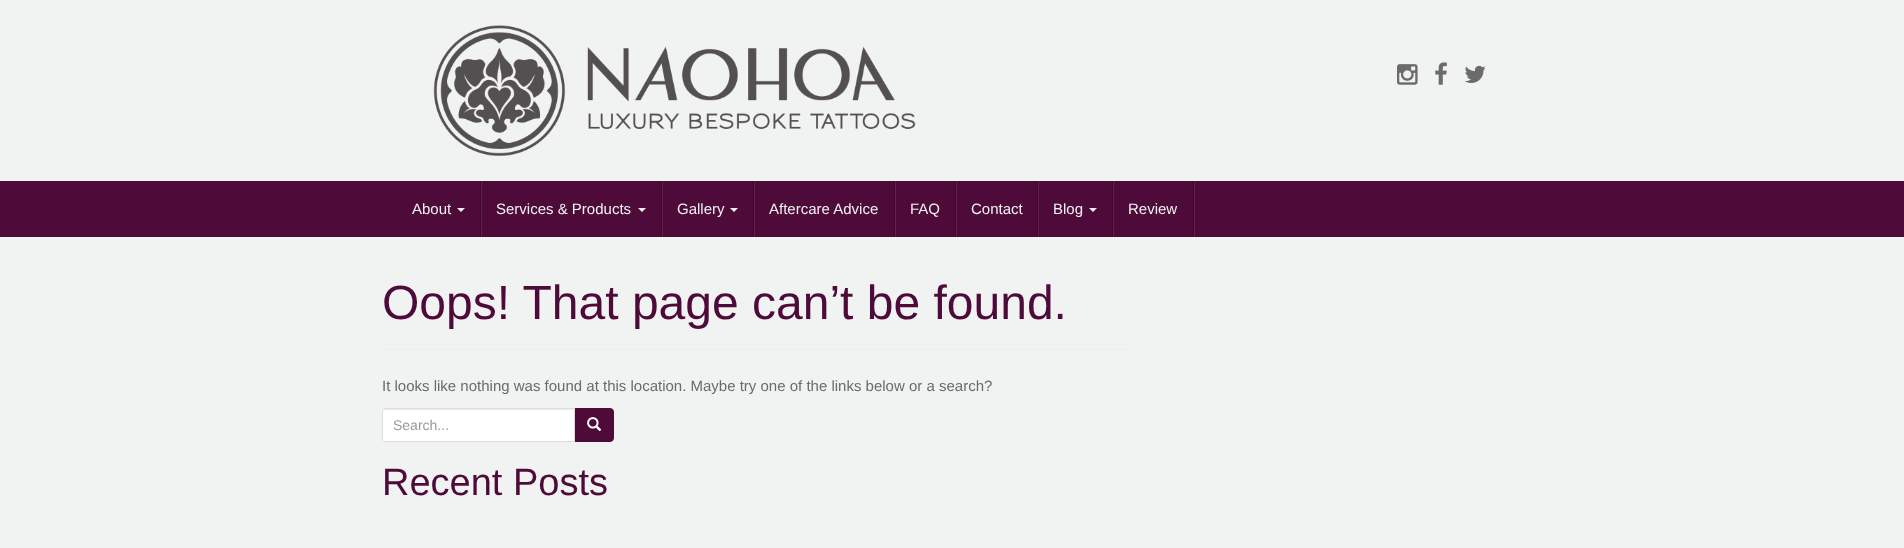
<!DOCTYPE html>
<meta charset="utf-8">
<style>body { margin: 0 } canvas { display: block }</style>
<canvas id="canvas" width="1904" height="548"></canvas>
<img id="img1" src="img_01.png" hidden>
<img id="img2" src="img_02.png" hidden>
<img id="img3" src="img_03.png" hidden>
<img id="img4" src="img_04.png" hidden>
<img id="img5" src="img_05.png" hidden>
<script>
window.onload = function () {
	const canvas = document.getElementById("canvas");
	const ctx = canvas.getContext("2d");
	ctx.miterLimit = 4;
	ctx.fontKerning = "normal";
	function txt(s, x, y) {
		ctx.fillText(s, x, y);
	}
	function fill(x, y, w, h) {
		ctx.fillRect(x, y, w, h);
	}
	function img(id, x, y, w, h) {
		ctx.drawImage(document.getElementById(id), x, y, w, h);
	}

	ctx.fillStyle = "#F1F2F2";
	fill(0, 0, 1904, 548);
	img("img1", 433, 25, 483, 131);
	img("img2", 1397, 64, 21, 21);
	img("img3", 1435, 62, 12, 23);
	img("img4", 1464, 65, 22, 18);
	ctx.fillStyle = "#4E0A39";
	fill(0, 181, 1904, 56);
	ctx.fillStyle = "#60234D";
	fill(481, 181, 1, 56);
	ctx.fillStyle = "#3E082E";
	fill(480, 181, 1, 56);
	ctx.fillStyle = "#F1F2F2";
	ctx.beginPath();
	ctx.moveTo(457, 208);
	ctx.lineTo(465, 208);
	ctx.lineTo(461, 212);
	ctx.closePath();
	ctx.fill();
	ctx.fillStyle = "#60234D";
	fill(662, 181, 1, 56);
	ctx.fillStyle = "#3E082E";
	fill(661, 181, 1, 56);
	ctx.fillStyle = "#F1F2F2";
	ctx.beginPath();
	ctx.moveTo(638, 208);
	ctx.lineTo(646, 208);
	ctx.lineTo(642, 212);
	ctx.closePath();
	ctx.fill();
	ctx.fillStyle = "#60234D";
	fill(754, 181, 1, 56);
	ctx.fillStyle = "#3E082E";
	fill(753, 181, 1, 56);
	ctx.fillStyle = "#F1F2F2";
	ctx.beginPath();
	ctx.moveTo(730, 208);
	ctx.lineTo(738, 208);
	ctx.lineTo(734, 212);
	ctx.closePath();
	ctx.fill();
	ctx.fillStyle = "#60234D";
	fill(895, 181, 1, 56);
	ctx.fillStyle = "#3E082E";
	fill(894, 181, 1, 56);
	ctx.fillStyle = "#60234D";
	fill(956, 181, 1, 56);
	ctx.fillStyle = "#3E082E";
	fill(955, 181, 1, 56);
	ctx.fillStyle = "#60234D";
	fill(1038, 181, 1, 56);
	ctx.fillStyle = "#3E082E";
	fill(1037, 181, 1, 56);
	ctx.fillStyle = "#60234D";
	fill(1113, 181, 1, 56);
	ctx.fillStyle = "#3E082E";
	fill(1112, 181, 1, 56);
	ctx.fillStyle = "#F1F2F2";
	ctx.beginPath();
	ctx.moveTo(1089, 208);
	ctx.lineTo(1097, 208);
	ctx.lineTo(1093, 212);
	ctx.closePath();
	ctx.fill();
	ctx.fillStyle = "#60234D";
	fill(1194, 181, 1, 56);
	ctx.fillStyle = "#3E082E";
	fill(1193, 181, 1, 56);
	ctx.fillStyle = "#EEEEEE";
	fill(382, 349, 750, 1);
	ctx.fillStyle = "#4E0A39";
	ctx.beginPath();
	ctx.roundRect(574.5, 408.5, 39, 33, [0, 3.5, 3.5, 0]);
	ctx.fill();
	ctx.strokeStyle = "#4E0A39";
	ctx.stroke();
	ctx.fillStyle = "#FFFFFF";
	ctx.beginPath();
	ctx.roundRect(382, 408, 193, 34, [3, 0, 0, 3]);
	ctx.fill();
	ctx.fillStyle = "#ECECEC";
	ctx.beginPath();
	ctx.moveTo(385, 410);
	ctx.lineTo(574, 410);
	ctx.lineTo(574, 409);
	ctx.lineTo(385, 409);
	ctx.bezierCurveTo(383, 409, 383, 411, 383, 412);
	ctx.bezierCurveTo(383, 411, 384, 410, 385, 410);
	ctx.closePath();
	ctx.fill();
	ctx.beginPath();
	ctx.roundRect(382.5, 408.5, 192, 33, [2.5, 0, 0, 2.5]);
	ctx.strokeStyle = "#DDDDDD";
	ctx.stroke();
	img("img5", 587, 417, 15, 14);
	ctx.font = "15px Liberation Sans";
	ctx.fillStyle = "#F1F2F2";
	txt("About", 412, 214);
	txt("Services & Products", 496, 214);
	txt("Gallery", 677, 214);
	txt("Aftercare Advice", 769, 214);
	txt("FAQ", 910, 214);
	txt("Contact", 971, 214);
	txt("Blog", 1053, 214);
	txt("Review", 1128, 214);
	ctx.font = "48px Liberation Sans";
	ctx.fillStyle = "#4E0A39";
	txt("Oops! That page can’t be found.", 382, 319);
	ctx.font = "15px Liberation Sans";
	ctx.fillStyle = "#6B6B6B";
	txt("It looks like nothing was found at this location. Maybe try one of the links below or a search?", 382, 391);
	ctx.font = "14px Liberation Sans";
	ctx.fillStyle = "#999999";
	txt("Search...", 393, 430);
	ctx.font = "38px Liberation Sans";
	ctx.fillStyle = "#4E0A39";
	txt("Recent Posts", 382, 495);
};
</script>
